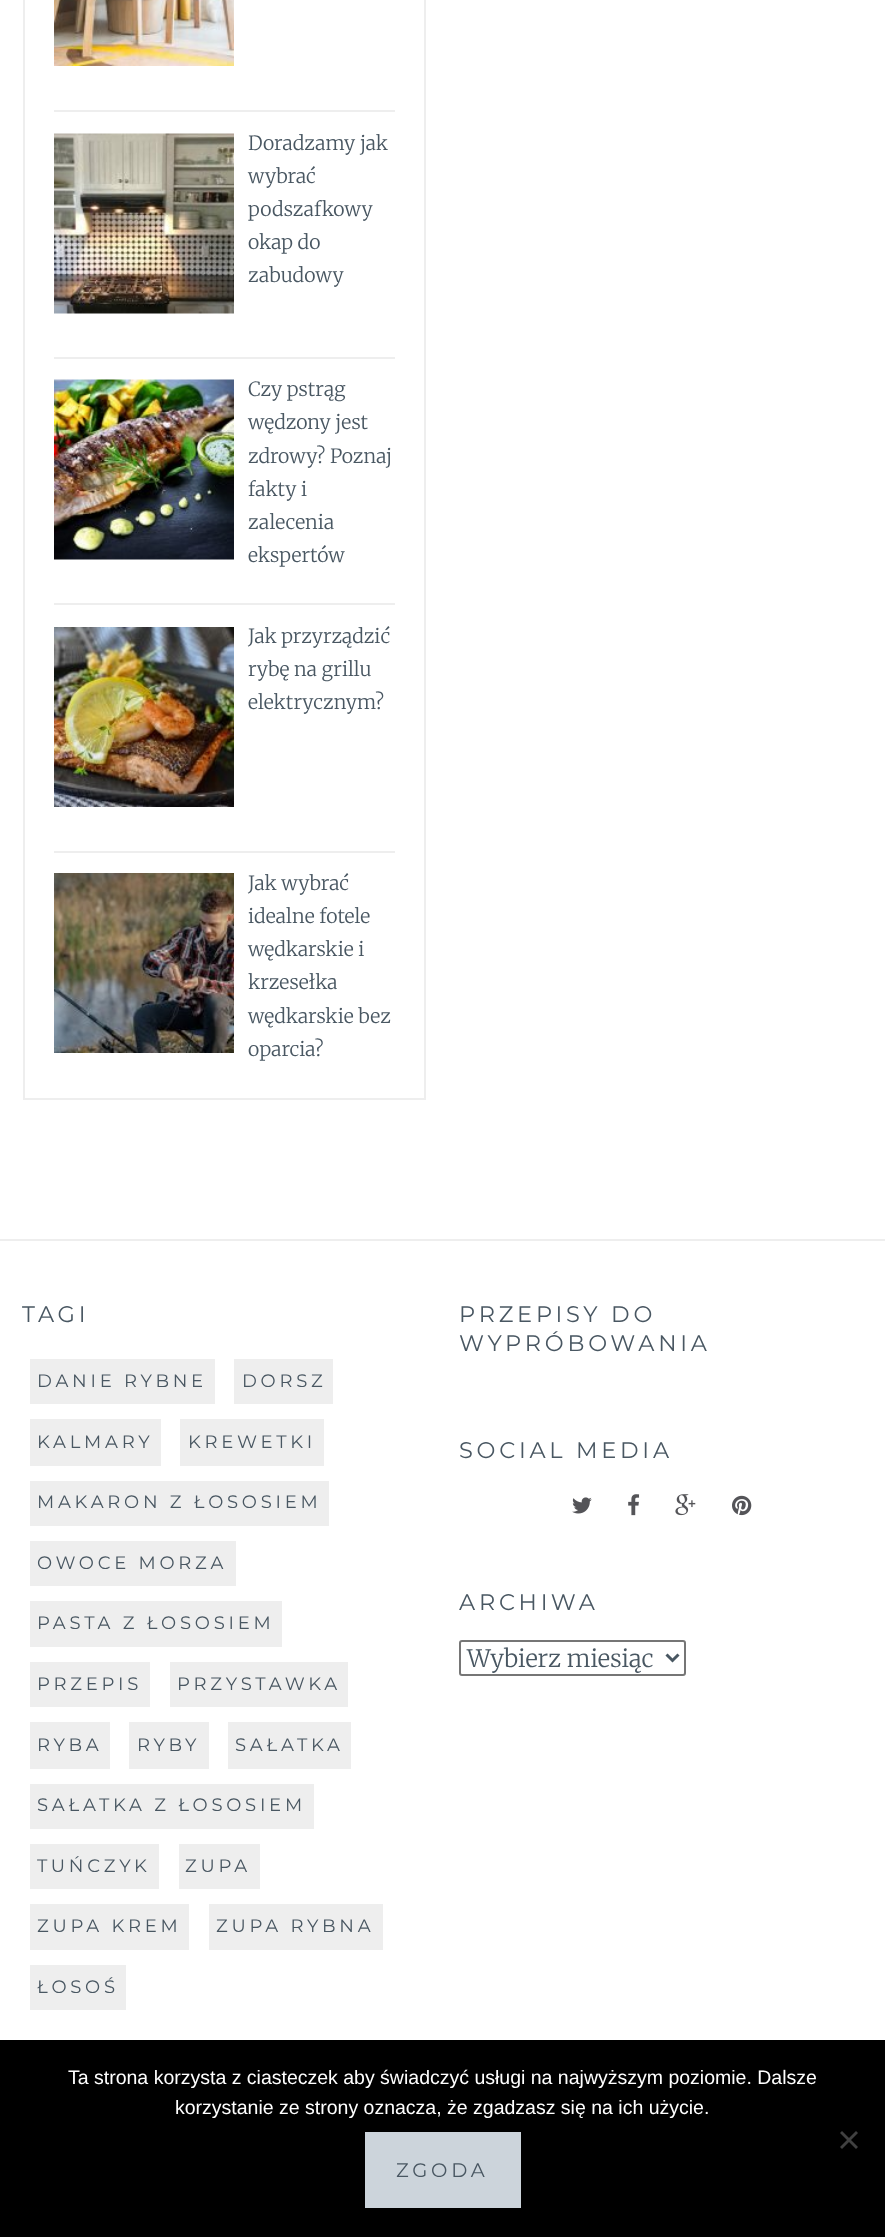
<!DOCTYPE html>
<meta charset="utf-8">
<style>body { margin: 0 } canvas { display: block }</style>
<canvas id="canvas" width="885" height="2237"></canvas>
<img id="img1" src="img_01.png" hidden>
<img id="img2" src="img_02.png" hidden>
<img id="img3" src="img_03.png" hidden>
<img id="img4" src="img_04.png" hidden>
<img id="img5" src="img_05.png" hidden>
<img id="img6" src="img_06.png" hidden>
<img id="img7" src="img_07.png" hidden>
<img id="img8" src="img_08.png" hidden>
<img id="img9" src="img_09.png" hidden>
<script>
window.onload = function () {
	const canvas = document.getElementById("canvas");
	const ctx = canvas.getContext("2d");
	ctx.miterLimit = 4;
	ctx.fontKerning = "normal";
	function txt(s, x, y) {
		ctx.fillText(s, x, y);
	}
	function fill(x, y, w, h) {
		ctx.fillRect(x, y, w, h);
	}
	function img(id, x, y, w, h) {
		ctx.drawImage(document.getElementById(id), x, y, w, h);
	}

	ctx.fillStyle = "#FFFFFF";
	fill(0, 0, 885, 2237);
	ctx.strokeStyle = "#EEEEEE";
	ctx.lineWidth = 2;
	ctx.strokeRect(24, -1, 401, 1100);
	img("img1", 54, 0, 180, 66);
	ctx.fillStyle = "#EEEEEE";
	fill(54, 110, 341, 2);
	img("img2", 54, 133, 180, 181);
	fill(54, 357, 341, 2);
	img("img3", 54, 379, 180, 181);
	fill(54, 603, 341, 2);
	img("img4", 54, 627, 180, 180);
	fill(54, 851, 341, 2);
	img("img5", 54, 873, 180, 180);
	fill(0, 1239, 885, 2);
	fill(30, 1359, 185, 45);
	fill(234, 1359, 99, 45);
	fill(30, 1419, 131, 47);
	fill(180, 1419, 144, 47);
	fill(30, 1481, 299, 45);
	fill(30, 1541, 206, 45);
	fill(30, 1601, 252, 46);
	fill(30, 1662, 120, 45);
	fill(170, 1662, 178, 45);
	fill(30, 1722, 80, 47);
	fill(129, 1722, 80, 47);
	fill(228, 1722, 123, 47);
	fill(30, 1784, 284, 45);
	fill(30, 1844, 129, 45);
	fill(179, 1844, 81, 45);
	fill(30, 1904, 159, 46);
	fill(209, 1904, 174, 46);
	fill(30, 1965, 96, 45);
	img("img6", 572, 1497, 20, 17);
	img("img7", 628, 1494, 12, 22);
	img("img8", 675, 1494, 21, 22);
	img("img9", 732, 1495, 20, 21);
	ctx.beginPath();
	ctx.roundRect(460, 1641, 225, 34, 2);
	ctx.strokeStyle = "#767676";
	ctx.stroke();
	ctx.beginPath();
	ctx.moveTo(666.5, 1654.5);
	ctx.lineTo(672.5, 1660.5);
	ctx.lineTo(678.5, 1654.5);
	ctx.strokeStyle = "#495762";
	ctx.lineWidth = 3;
	ctx.stroke();
	ctx.fillStyle = "#000000";
	fill(0, 2040, 885, 197);
	ctx.fillStyle = "#404040";
	ctx.beginPath();
	ctx.moveTo(856, 2131);
	ctx.lineTo(858, 2133);
	ctx.lineTo(842, 2149);
	ctx.lineTo(840, 2147);
	ctx.closePath();
	ctx.fill();
	ctx.beginPath();
	ctx.moveTo(840, 2133);
	ctx.lineTo(842, 2131);
	ctx.lineTo(858, 2147);
	ctx.lineTo(856, 2149);
	ctx.closePath();
	ctx.fill();
	ctx.fillStyle = "#CCD4DB";
	fill(365, 2132, 156, 76);
	ctx.font = "300 19.5px Merriweather";
	ctx.fillStyle = "#495762";
	txt("Doradzamy jak", 248, 150);
	txt("wybrać", 248, 183);
	txt("podszafkowy", 248, 216);
	txt("okap do", 248, 249);
	txt("zabudowy", 248, 282);
	txt("Czy pstrąg", 248, 396);
	txt("wędzony jest", 248, 429);
	txt("zdrowy? Poznaj", 248, 463);
	txt("fakty i", 248, 496);
	txt("zalecenia", 248, 529);
	txt("ekspertów", 248, 562);
	txt("Jak przyrządzić", 248, 643);
	txt("rybę na grillu", 248, 676);
	txt("elektrycznym?", 248, 709);
	txt("Jak wybrać", 248, 890);
	txt("idealne fotele", 248, 923);
	txt("wędkarskie i", 248, 956);
	txt("krzesełka", 248, 989);
	txt("wędkarskie bez", 248, 1023);
	txt("oparcia?", 248, 1056);
	ctx.letterSpacing = "3.75px";
	ctx.font = "100 22.5px Montserrat";
	txt("TAGI", 22, 1322);
	ctx.font = "100 18px Montserrat";
	txt("DANIE RYBNE", 37, 1387);
	txt("DORSZ", 242, 1387);
	txt("KALMARY", 37, 1448);
	txt("KREWETKI", 188, 1448);
	txt("MAKARON Z ŁOSOSIEM", 37, 1508);
	txt("OWOCE MORZA", 37, 1569);
	txt("PASTA Z ŁOSOSIEM", 37, 1629);
	txt("PRZEPIS", 37, 1690);
	txt("PRZYSTAWKA", 177, 1690);
	txt("RYBA", 37, 1751);
	txt("RYBY", 137, 1751);
	txt("SAŁATKA", 235, 1751);
	txt("SAŁATKA Z ŁOSOSIEM", 37, 1811);
	txt("TUŃCZYK", 37, 1872);
	txt("ZUPA", 185, 1872);
	txt("ZUPA KREM", 37, 1932);
	txt("ZUPA RYBNA", 216, 1932);
	txt("ŁOSOŚ", 37, 1993);
	ctx.font = "100 22.5px Montserrat";
	txt("PRZEPISY DO", 459, 1322);
	txt("WYPRÓBOWANIA", 459, 1351);
	txt("SOCIAL MEDIA", 459, 1458);
	txt("ARCHIWA", 459, 1610);
	ctx.letterSpacing = "0px";
	ctx.font = "300 24px Merriweather";
	txt("Wybierz miesiąc", 467, 1667);
	ctx.font = "19.5px Liberation Sans";
	ctx.fillStyle = "#FFFFFF";
	txt("Ta strona korzysta z ciasteczek aby świadczyć usługi na najwyższym poziomie. Dalsze", 68, 2084);
	txt("korzystanie ze strony oznacza, że zgadzasz się na ich użycie.", 175, 2114);
	ctx.letterSpacing = "3.75px";
	ctx.font = "100 19.5px Montserrat";
	ctx.fillStyle = "#495762";
	txt("ZGODA", 396, 2177);
};
</script>
